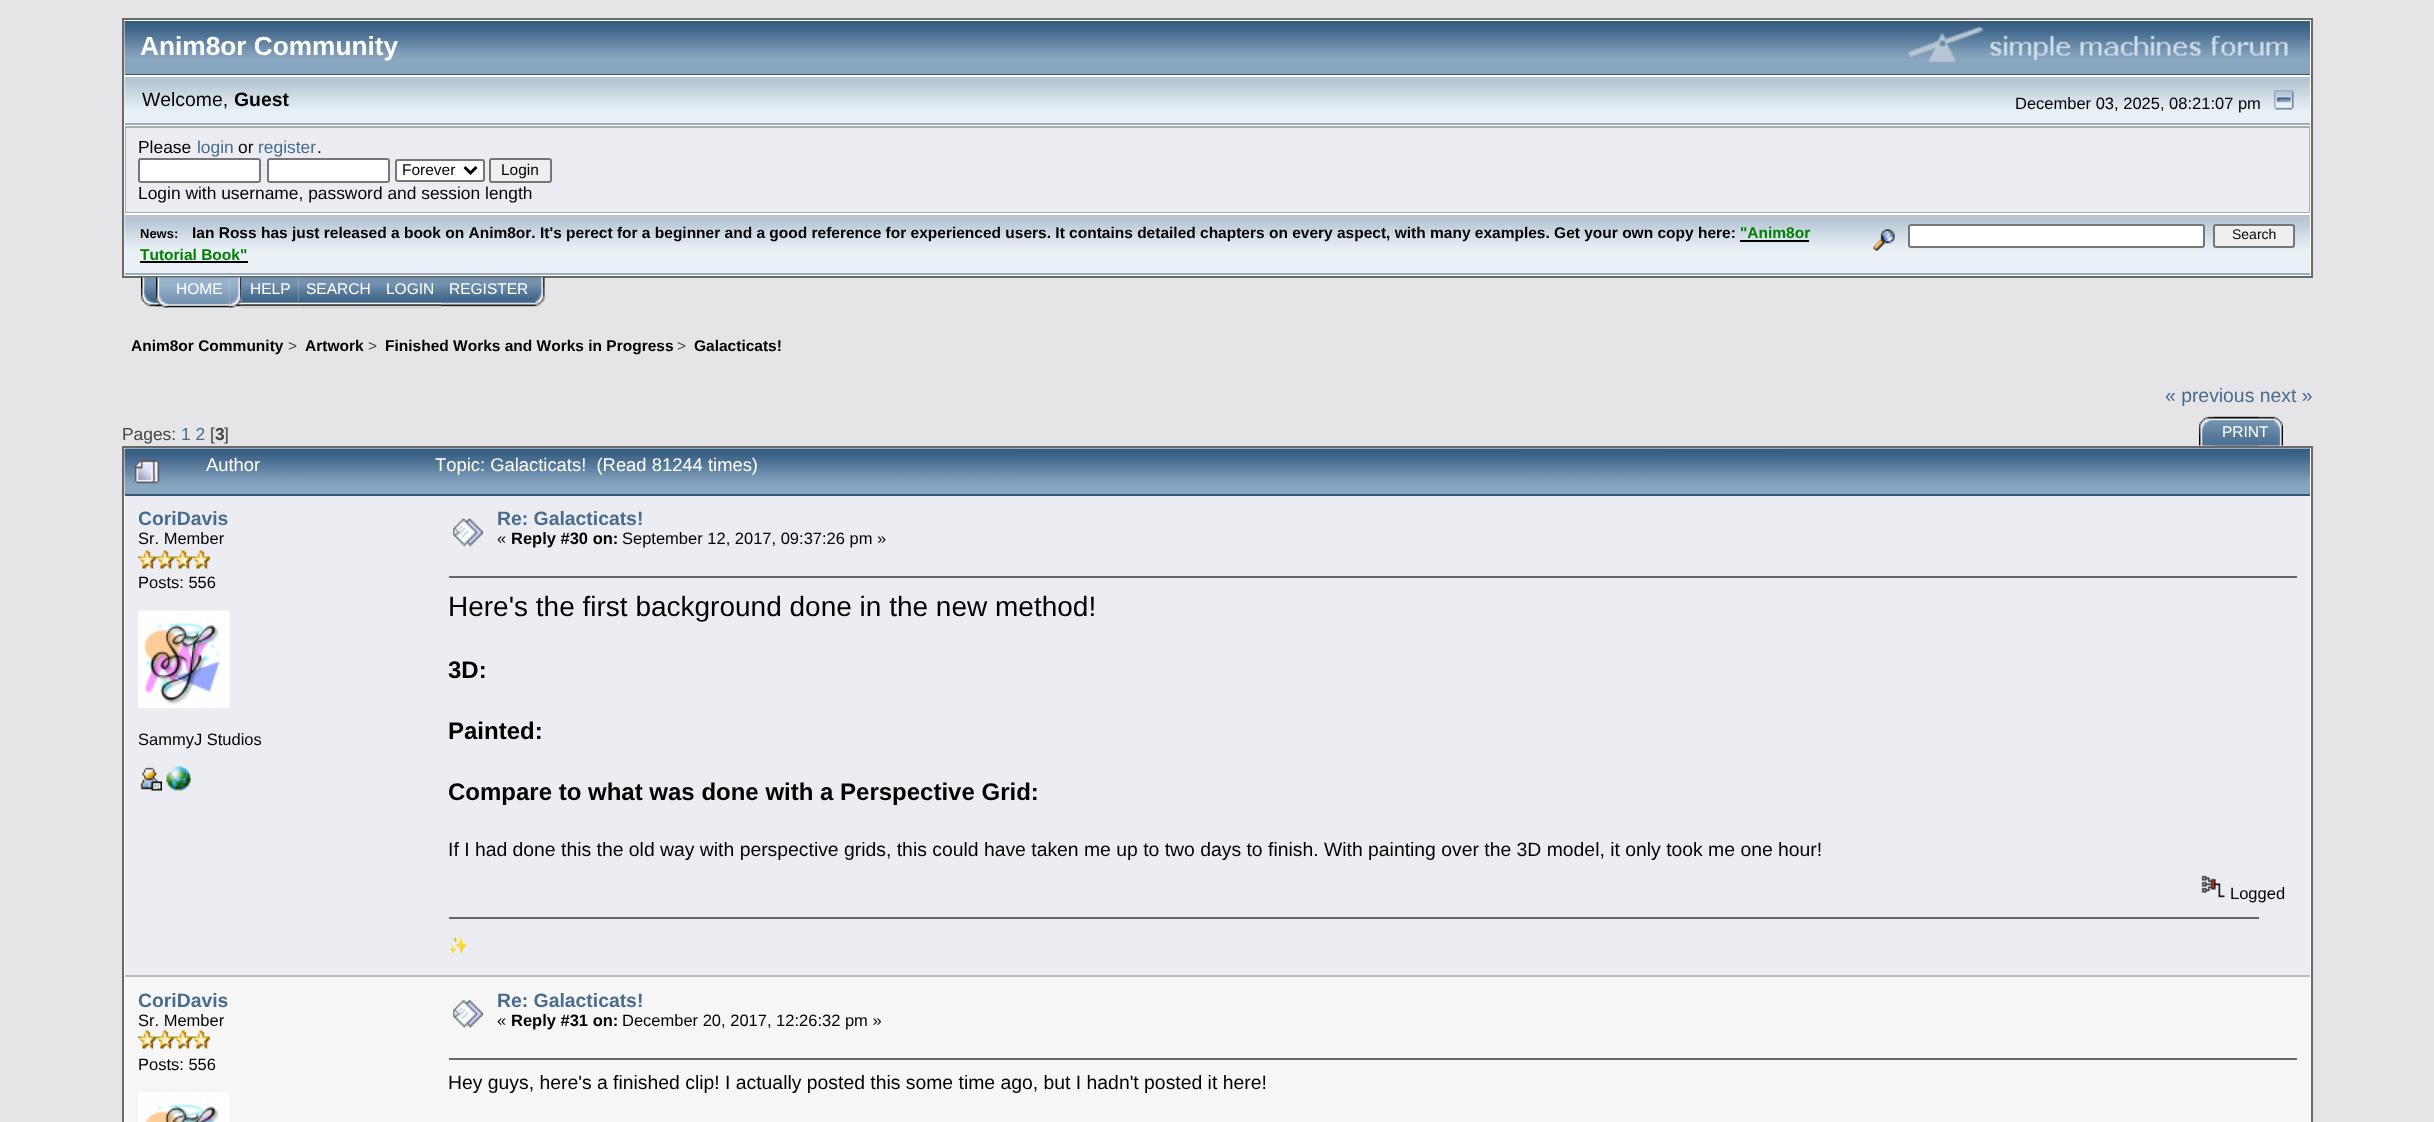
<!DOCTYPE html>
<meta charset="utf-8">
<style>body { margin: 0 } canvas { display: block }</style>
<canvas id="canvas" width="2434" height="1122"></canvas>
<img id="img1" src="img_01.png" hidden>
<img id="img2" src="img_02.png" hidden>
<img id="img3" src="img_03.png" hidden>
<img id="img4" src="img_04.png" hidden>
<img id="img5" src="img_05.png" hidden>
<img id="img6" src="img_06.png" hidden>
<img id="img7" src="img_07.png" hidden>
<img id="img8" src="img_08.png" hidden>
<img id="img9" src="img_09.png" hidden>
<img id="img10" src="img_10.png" hidden>
<img id="img11" src="img_11.png" hidden>
<img id="img12" src="img_12.png" hidden>
<img id="img13" src="img_13.png" hidden>
<img id="img14" src="img_14.png" hidden>
<img id="img15" src="img_15.png" hidden>
<img id="img16" src="img_16.png" hidden>
<img id="img17" src="img_17.png" hidden>
<img id="img18" src="img_18.png" hidden>
<img id="img19" src="img_19.png" hidden>
<img id="img20" src="img_20.png" hidden>
<img id="img21" src="img_21.png" hidden>
<img id="img22" src="img_22.png" hidden>
<img id="img23" src="img_23.png" hidden>
<img id="img24" src="img_24.png" hidden>
<img id="img25" src="img_25.png" hidden>
<img id="img26" src="img_26.png" hidden>
<img id="img27" src="img_27.png" hidden>
<script>
window.onload = function () {
	const canvas = document.getElementById("canvas");
	const ctx = canvas.getContext("2d");
	ctx.miterLimit = 4;
	ctx.fontKerning = "none";
	function txt(s, x, y) {
		ctx.fillText(s, x, y);
	}
	function fill(x, y, w, h) {
		ctx.fillRect(x, y, w, h);
	}
	function img(id, x, y, w, h) {
		ctx.drawImage(document.getElementById(id), x, y, w, h);
	}

	ctx.fillStyle = "#E5E5E8";
	fill(0, 0, 2434, 1122);
	ctx.fillStyle = "#FFFFFF";
	ctx.beginPath();
	ctx.rect(123, 19, 2189, 258);
	ctx.fill();
	ctx.strokeStyle = "#696969";
	ctx.lineWidth = 2;
	ctx.stroke();
	img("img1", 124, 21, 2186, 54);
	ctx.fillStyle = "#375576";
	fill(125, 74, 2185, 1);
	img("img2", 1908, 26, 380, 37);
	img("img3", 124, 76, 2186, 49);
	ctx.fillStyle = "#FFFFFF";
	fill(125, 76, 2185, 1);
	ctx.fillStyle = "#9BAEBF";
	fill(125, 123, 2185, 2);
	img("img4", 2274, 90, 20, 20);
	ctx.fillStyle = "#ADADAD";
	fill(125, 126, 2185, 87);
	ctx.fillStyle = "#ECEDF3";
	fill(126, 128, 2183, 84);
	ctx.fillStyle = "#FFFFFF";
	ctx.beginPath();
	ctx.roundRect(139, 159, 121, 23, 2);
	ctx.fill();
	ctx.strokeStyle = "#767676";
	ctx.stroke();
	ctx.beginPath();
	ctx.roundRect(268, 159, 121, 23, 2);
	ctx.fill();
	ctx.stroke();
	ctx.beginPath();
	ctx.roundRect(396, 160, 88, 21, 2);
	ctx.fill();
	ctx.stroke();
	ctx.beginPath();
	ctx.moveTo(464.5, 167);
	ctx.lineTo(470.5, 173);
	ctx.lineTo(476.5, 167);
	ctx.strokeStyle = "#000000";
	ctx.lineWidth = 3;
	ctx.stroke();
	ctx.fillStyle = "#EFEFEF";
	ctx.beginPath();
	ctx.roundRect(490, 159, 61, 23, 2);
	ctx.fill();
	ctx.strokeStyle = "#767676";
	ctx.lineWidth = 2;
	ctx.stroke();
	img("img5", 124, 214, 2186, 61);
	ctx.fillStyle = "#FFFFFF";
	fill(125, 214, 2185, 1);
	ctx.fillStyle = "#9BAEBF";
	fill(125, 273, 2185, 2);
	ctx.fillStyle = "#000000";
	fill(1740, 240, 69, 2);
	fill(140, 261, 108, 2);
	img("img6", 1873, 229, 22, 22);
	ctx.fillStyle = "#FFFFFF";
	ctx.beginPath();
	ctx.roundRect(1909, 225, 295, 22, 2);
	ctx.fill();
	ctx.stroke();
	ctx.fillStyle = "#EFEFEF";
	ctx.beginPath();
	ctx.roundRect(2214, 225, 80, 22, 2);
	ctx.fill();
	ctx.stroke();
	img("img7", 141, 277, 60, 30);
	img("img8", 229, 277, 13, 31);
	img("img9", 156, 277, 12, 31);
	img("img10", 168, 277, 62, 31);
	img("img11", 241, 277, 58, 31);
	img("img12", 298, 277, 80, 31);
	img("img13", 378, 277, 63, 31);
	img("img14", 441, 277, 104, 30);
	img("img15", 2199, 416, 60, 30);
	img("img16", 2214, 416, 69, 30);
	ctx.fillStyle = "#FFFFFF";
	ctx.beginPath();
	ctx.rect(123, 447, 2189, 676);
	ctx.fill();
	ctx.strokeStyle = "#696969";
	ctx.stroke();
	img("img17", 124, 448, 2186, 47);
	ctx.fillStyle = "#375576";
	fill(125, 494, 2185, 2);
	img("img18", 134, 460, 26, 24);
	ctx.fillStyle = "#ECEDF3";
	fill(125, 496, 2185, 479);
	img("img19", 138, 550, 18, 19);
	img("img19", 156, 550, 18, 19);
	img("img19", 174, 550, 18, 19);
	img("img19", 192, 550, 18, 19);
	img("img20", 138, 610, 92, 98);
	img("img21", 140, 767, 22, 24);
	img("img22", 166, 766, 25, 25);
	img("img23", 453, 518, 30, 29);
	ctx.fillStyle = "#666666";
	fill(449, 576, 1848, 2);
	img("img24", 2201, 875, 24, 23);
	fill(449, 917, 1810, 2);
	ctx.fillStyle = "#F6F6F6";
	fill(125, 977, 2185, 145);
	ctx.fillStyle = "#BBBBBB";
	fill(125, 975, 2185, 2);
	img("img25", 138, 1030, 18, 19);
	img("img25", 156, 1030, 18, 19);
	img("img25", 174, 1030, 18, 19);
	img("img25", 192, 1030, 18, 19);
	img("img26", 138, 1092, 92, 30);
	img("img27", 453, 1000, 30, 28);
	ctx.fillStyle = "#666666";
	fill(449, 1058, 1848, 2);
	ctx.font = "bold 26.25px Liberation Sans";
	ctx.fillStyle = "#FFFFFF";
	txt("Anim8or Community", 140, 55);
	ctx.font = "19.38px Liberation Sans";
	ctx.fillStyle = "#000000";
	txt("Welcome,", 142, 106);
	ctx.font = "bold 19.38px Liberation Sans";
	txt("Guest", 234, 106);
	ctx.font = "16.5px Liberation Sans";
	txt("December 03, 2025, 08:21:07 pm", 2015, 109);
	ctx.font = "17.4px Liberation Sans";
	txt("Please", 138, 153);
	ctx.fillStyle = "#476C8E";
	txt("login", 197, 153);
	ctx.fillStyle = "#000000";
	txt("or", 238, 153);
	ctx.fillStyle = "#476C8E";
	txt("register", 258, 153);
	ctx.fillStyle = "#000000";
	txt(".", 317, 153);
	ctx.font = "15.5px Liberation Sans";
	txt("Forever", 402, 175);
	txt("Login", 501, 175);
	ctx.font = "17.4px Liberation Sans";
	txt("Login with username, password and session length", 138, 199);
	ctx.font = "bold 13px Liberation Sans";
	txt("News:", 140, 238);
	ctx.font = "bold 15.5px Liberation Sans";
	txt("Ian Ross has just released a book on Anim8or. It's perect for a beginner and a good reference for experienced users. It contains detailed chapters on every aspect, with many examples. Get your own copy here:", 192, 238);
	ctx.fillStyle = "#008000";
	txt("\"Anim8or", 1740, 238);
	txt("Tutorial Book\"", 140, 260);
	ctx.font = "14px Liberation Sans";
	ctx.fillStyle = "#000000";
	txt("Search", 2232, 239);
	ctx.font = "15.5px Liberation Sans";
	ctx.fillStyle = "#FFFFFF";
	txt("HOME", 176, 294);
	txt("HELP", 250, 294);
	txt("SEARCH", 306, 294);
	txt("LOGIN", 386, 294);
	txt("REGISTER", 449, 294);
	ctx.font = "bold 15.5px Liberation Sans";
	ctx.fillStyle = "#000000";
	txt("Anim8or Community", 131, 351);
	ctx.font = "15.5px Liberation Sans";
	ctx.fillStyle = "#444444";
	txt(">", 288, 351);
	ctx.font = "bold 15.5px Liberation Sans";
	ctx.fillStyle = "#000000";
	txt("Artwork", 305, 351);
	ctx.font = "15.5px Liberation Sans";
	ctx.fillStyle = "#444444";
	txt(">", 368, 351);
	ctx.font = "bold 15.5px Liberation Sans";
	ctx.fillStyle = "#000000";
	txt("Finished Works and Works in Progress", 385, 351);
	ctx.font = "15.5px Liberation Sans";
	ctx.fillStyle = "#444444";
	txt(">", 677, 351);
	ctx.font = "bold 15.5px Liberation Sans";
	ctx.fillStyle = "#000000";
	txt("Galacticats!", 694, 351);
	ctx.font = "19.38px Liberation Sans";
	ctx.fillStyle = "#476C8E";
	txt("« previous next »", 2165, 402);
	ctx.font = "17.4px Liberation Sans";
	ctx.fillStyle = "#444444";
	txt("Pages:", 122, 440);
	ctx.fillStyle = "#476C8E";
	txt("1 2", 181, 440);
	ctx.fillStyle = "#444444";
	txt("[", 210, 440);
	ctx.font = "bold 17.4px Liberation Sans";
	txt("3", 215, 440);
	ctx.font = "17.4px Liberation Sans";
	txt("]", 224, 440);
	ctx.font = "15.5px Liberation Sans";
	ctx.fillStyle = "#FFFFFF";
	txt("PRINT", 2222, 437);
	ctx.font = "18.4px Liberation Sans";
	txt("Author", 206, 471);
	txt("Topic: Galacticats!  (Read 81244 times)", 435, 471);
	ctx.font = "bold 19.38px Liberation Sans";
	ctx.fillStyle = "#476C8E";
	txt("CoriDavis", 138, 525);
	ctx.font = "16.5px Liberation Sans";
	ctx.fillStyle = "#000000";
	txt("Sr. Member", 138, 544);
	txt("Posts: 556", 138, 588);
	txt("SammyJ Studios", 138, 745);
	ctx.font = "bold 19.38px Liberation Sans";
	ctx.fillStyle = "#476C8E";
	txt("Re: Galacticats!", 497, 525);
	ctx.font = "16.5px Liberation Sans";
	ctx.fillStyle = "#000000";
	txt("«", 497, 544);
	ctx.font = "bold 16.5px Liberation Sans";
	txt("Reply #30 on:", 511, 544);
	ctx.font = "16.5px Liberation Sans";
	txt("September 12, 2017, 09:37:26 pm »", 622, 544);
	ctx.font = "28px Liberation Sans";
	txt("Here's the first background done in the new method!", 448, 616);
	ctx.font = "bold 24px Liberation Sans";
	txt("3D:", 448, 678);
	txt("Painted:", 448, 739);
	txt("Compare to what was done with a Perspective Grid:", 448, 800);
	ctx.font = "19.38px Liberation Sans";
	txt("If I had done this the old way with perspective grids, this could have taken me up to two days to finish. With painting over the 3D model, it only took me one hour!", 448, 856);
	ctx.font = "16.5px Liberation Sans";
	txt("Logged", 2230, 899);
	ctx.save();
	ctx.beginPath();
	ctx.rect(449, 918, 1810, 44);
	ctx.clip();
	ctx.font = "16.5px Noto Color Emoji";
	txt("✨", 448, 951);
	ctx.restore();
	ctx.font = "bold 19.38px Liberation Sans";
	ctx.fillStyle = "#476C8E";
	txt("CoriDavis", 138, 1007);
	ctx.font = "16.5px Liberation Sans";
	ctx.fillStyle = "#000000";
	txt("Sr. Member", 138, 1026);
	txt("Posts: 556", 138, 1070);
	ctx.font = "bold 19.38px Liberation Sans";
	ctx.fillStyle = "#476C8E";
	txt("Re: Galacticats!", 497, 1007);
	ctx.font = "16.5px Liberation Sans";
	ctx.fillStyle = "#000000";
	txt("«", 497, 1026);
	ctx.font = "bold 16.5px Liberation Sans";
	txt("Reply #31 on:", 511, 1026);
	ctx.font = "16.5px Liberation Sans";
	txt("December 20, 2017, 12:26:32 pm »", 622, 1026);
	ctx.font = "19.38px Liberation Sans";
	txt("Hey guys, here's a finished clip! I actually posted this some time ago, but I hadn't posted it here!", 448, 1089);
};
</script>
